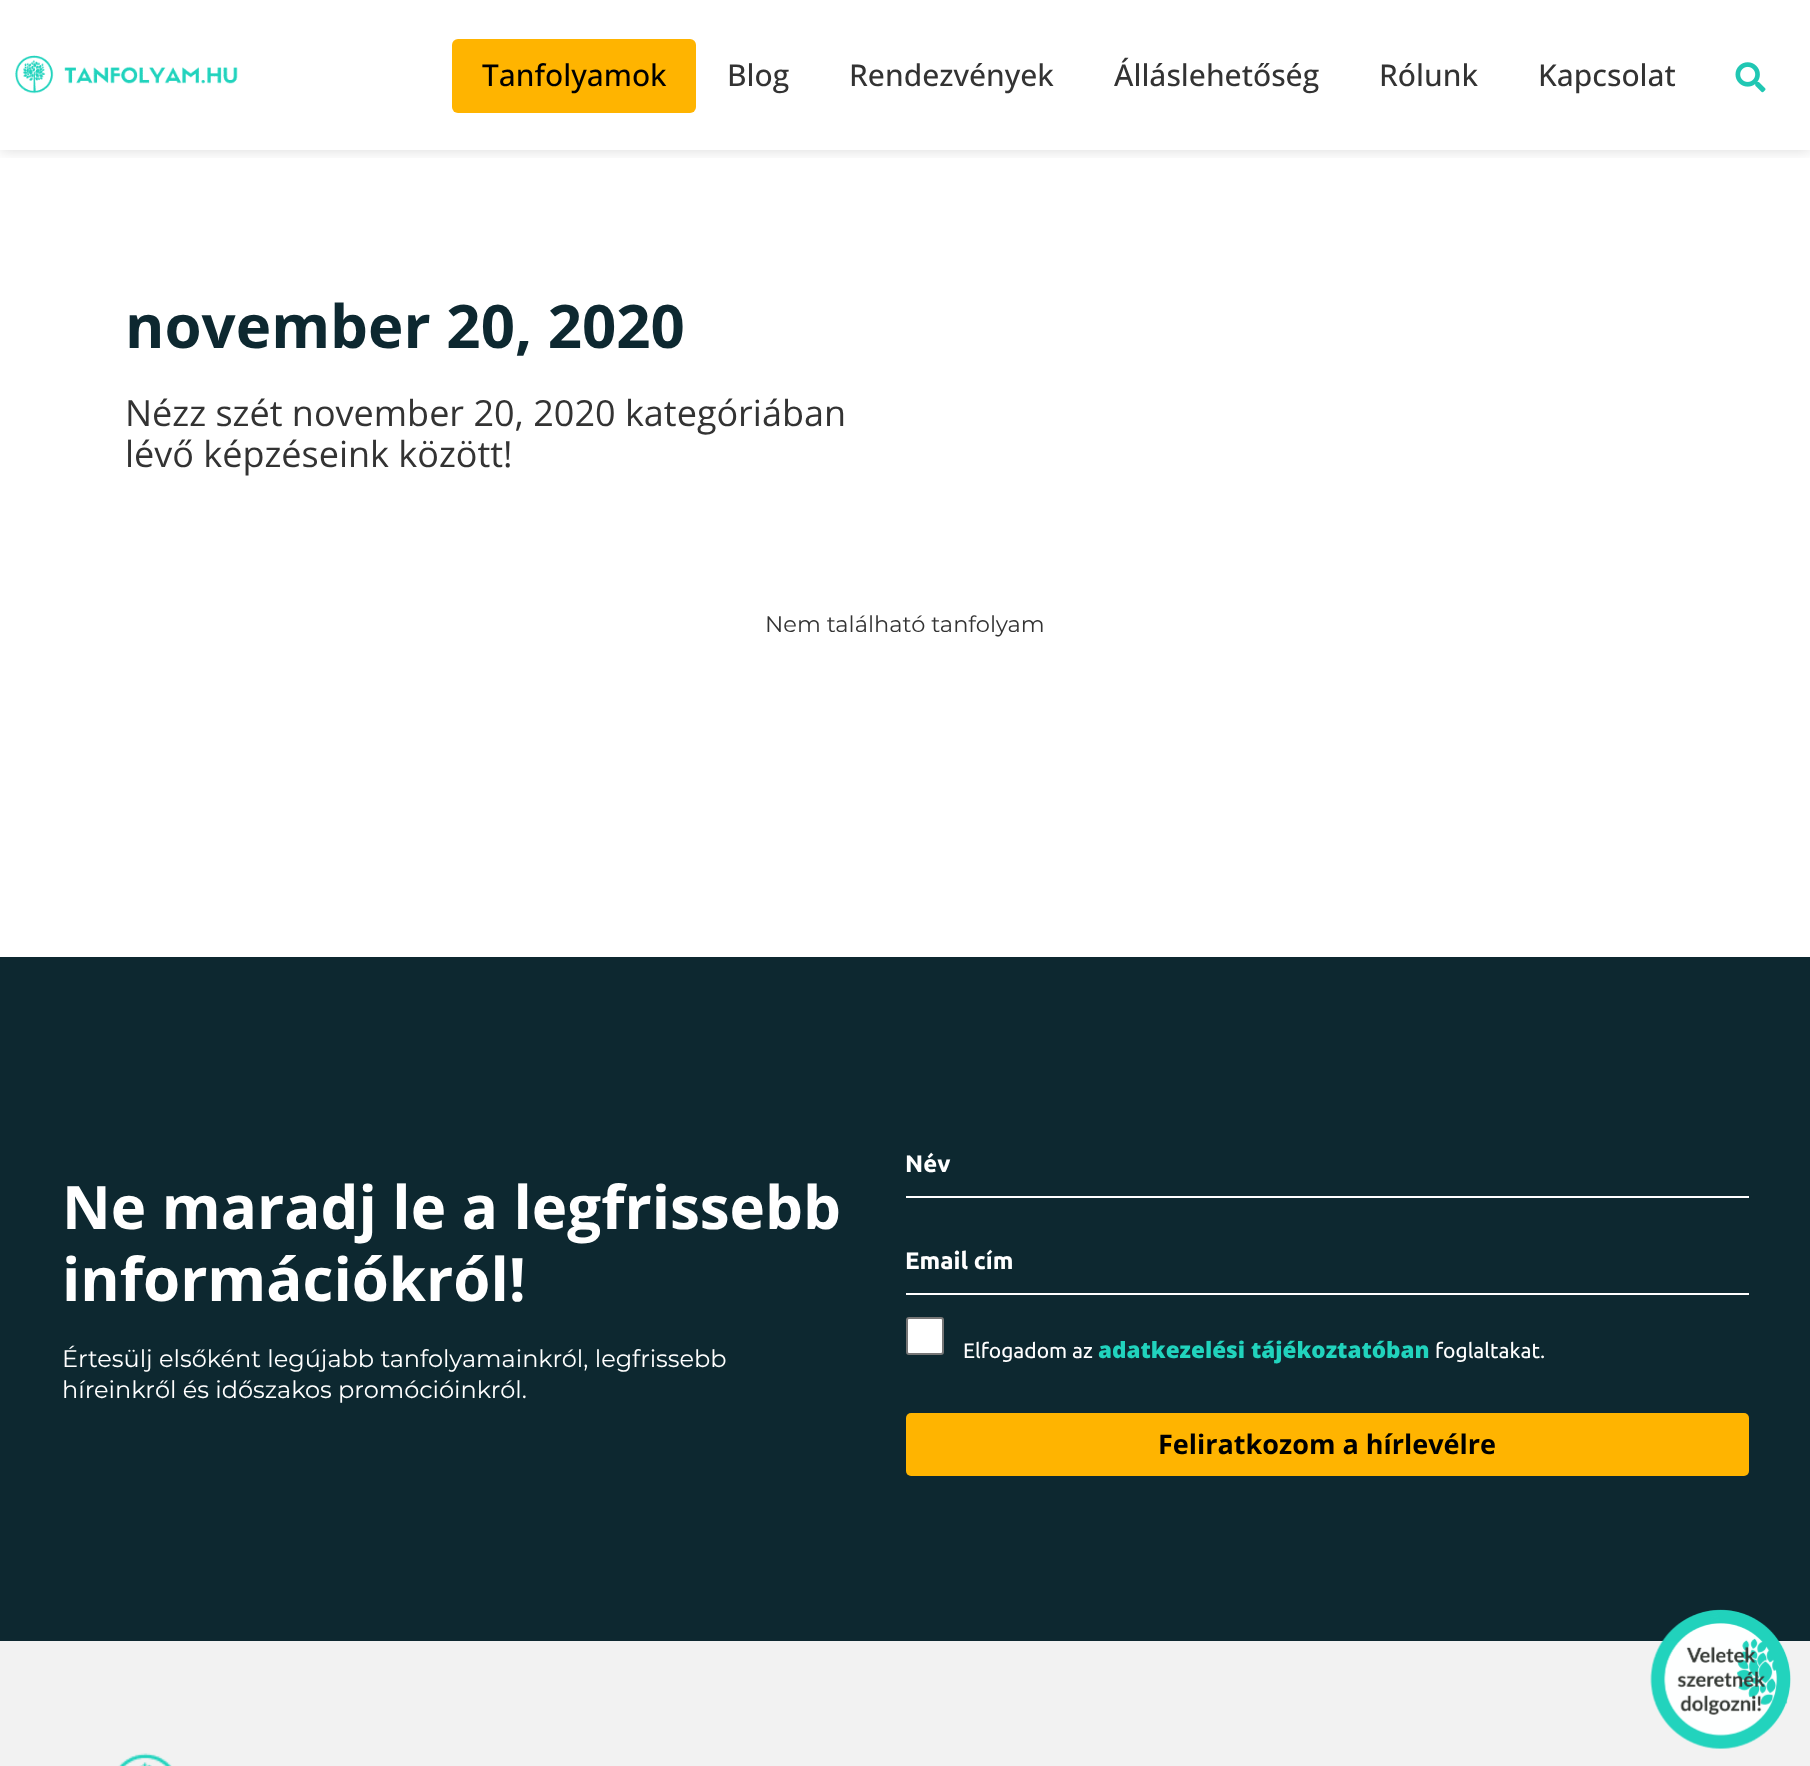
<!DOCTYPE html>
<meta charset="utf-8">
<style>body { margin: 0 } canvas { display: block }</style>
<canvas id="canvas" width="1810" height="1766"></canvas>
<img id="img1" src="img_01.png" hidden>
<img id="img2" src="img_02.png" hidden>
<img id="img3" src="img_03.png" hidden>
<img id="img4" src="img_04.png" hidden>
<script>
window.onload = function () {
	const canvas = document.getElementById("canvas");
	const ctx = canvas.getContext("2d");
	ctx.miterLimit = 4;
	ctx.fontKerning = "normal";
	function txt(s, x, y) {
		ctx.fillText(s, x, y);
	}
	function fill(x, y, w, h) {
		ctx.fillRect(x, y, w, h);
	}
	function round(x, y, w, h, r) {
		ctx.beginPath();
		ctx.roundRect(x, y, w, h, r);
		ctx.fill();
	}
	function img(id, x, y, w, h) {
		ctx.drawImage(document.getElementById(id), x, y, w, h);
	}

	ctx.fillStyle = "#FFFFFF";
	fill(0, 0, 1810, 1766);
	ctx.save();
	ctx.beginPath();
	ctx.rect(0, 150, 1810, 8);
	ctx.clip();
	ctx.fillStyle = "rgba(0, 0, 0, 0.15)";
	ctx.filter = "blur(7.5px)";
	ctx.beginPath();
	ctx.rect(0, 0, 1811, 150);
	ctx.fill();
	ctx.filter = "none";
	ctx.restore();
	img("img1", 15, 55, 223, 39);
	ctx.fillStyle = "#FFB400";
	round(452, 39, 244, 74, 6);
	img("img2", 1735, 62, 31, 31);
	ctx.fillStyle = "#0D2830";
	fill(0, 957, 1810, 684);
	ctx.fillStyle = "#FFFFFF";
	fill(906, 1196, 843, 2);
	fill(906, 1293, 843, 2);
	ctx.beginPath();
	ctx.roundRect(907, 1318, 36, 36, 2);
	ctx.fill();
	ctx.strokeStyle = "#767676";
	ctx.lineWidth = 2;
	ctx.stroke();
	ctx.fillStyle = "#FFB400";
	round(906, 1413, 843, 63, 5);
	ctx.fillStyle = "#F2F2F2";
	fill(0, 1641, 1810, 125);
	img("img3", 1650, 1609, 141, 140);
	img("img4", 118, 1753, 54, 13);
	ctx.font = "500 30px Open Sans";
	ctx.fillStyle = "#000000";
	txt("Tanfolyamok", 482, 86);
	ctx.fillStyle = "#333333";
	txt("Blog", 727, 86);
	txt("Rendezvények", 849, 86);
	txt("Álláslehetőség", 1114, 86);
	txt("Rólunk", 1379, 86);
	txt("Kapcsolat", 1538, 86);
	ctx.font = "bold 60px Open Sans";
	ctx.fillStyle = "#0D2830";
	txt("november 20, 2020", 125, 348);
	ctx.font = "36px Open Sans";
	ctx.fillStyle = "#333333";
	txt("Nézz szét november 20, 2020 kategóriában", 125, 426);
	txt("lévő képzéseink között!", 125, 467);
	ctx.font = "22.5px Montserrat";
	txt("Nem található tanfolyam", 765, 632);
	ctx.font = "bold 60px Open Sans";
	ctx.fillStyle = "#FFFFFF";
	txt("Ne maradj le a legfrissebb", 62, 1229);
	txt("információkról!", 62, 1301);
	ctx.font = "24px Montserrat";
	txt("Értesülj elsőként legújabb tanfolyamainkról, legfrissebb", 62, 1367);
	txt("híreinkről és időszakos promócióinkról.", 62, 1398);
	ctx.font = "bold 24px Ubuntu";
	txt("Név", 905, 1172);
	txt("Email cím", 905, 1269);
	ctx.font = "21px Ubuntu";
	txt("Elfogadom az", 963, 1358);
	ctx.font = "800 22.5px Open Sans";
	ctx.fillStyle = "#21D3BD";
	txt("adatkezelési tájékoztatóban", 1098, 1358);
	ctx.font = "21px Ubuntu";
	ctx.fillStyle = "#FFFFFF";
	txt("foglaltakat.", 1435, 1358);
	ctx.font = "bold 27px Open Sans";
	ctx.fillStyle = "#000000";
	txt("Feliratkozom a hírlevélre", 1158, 1454);
};
</script>
